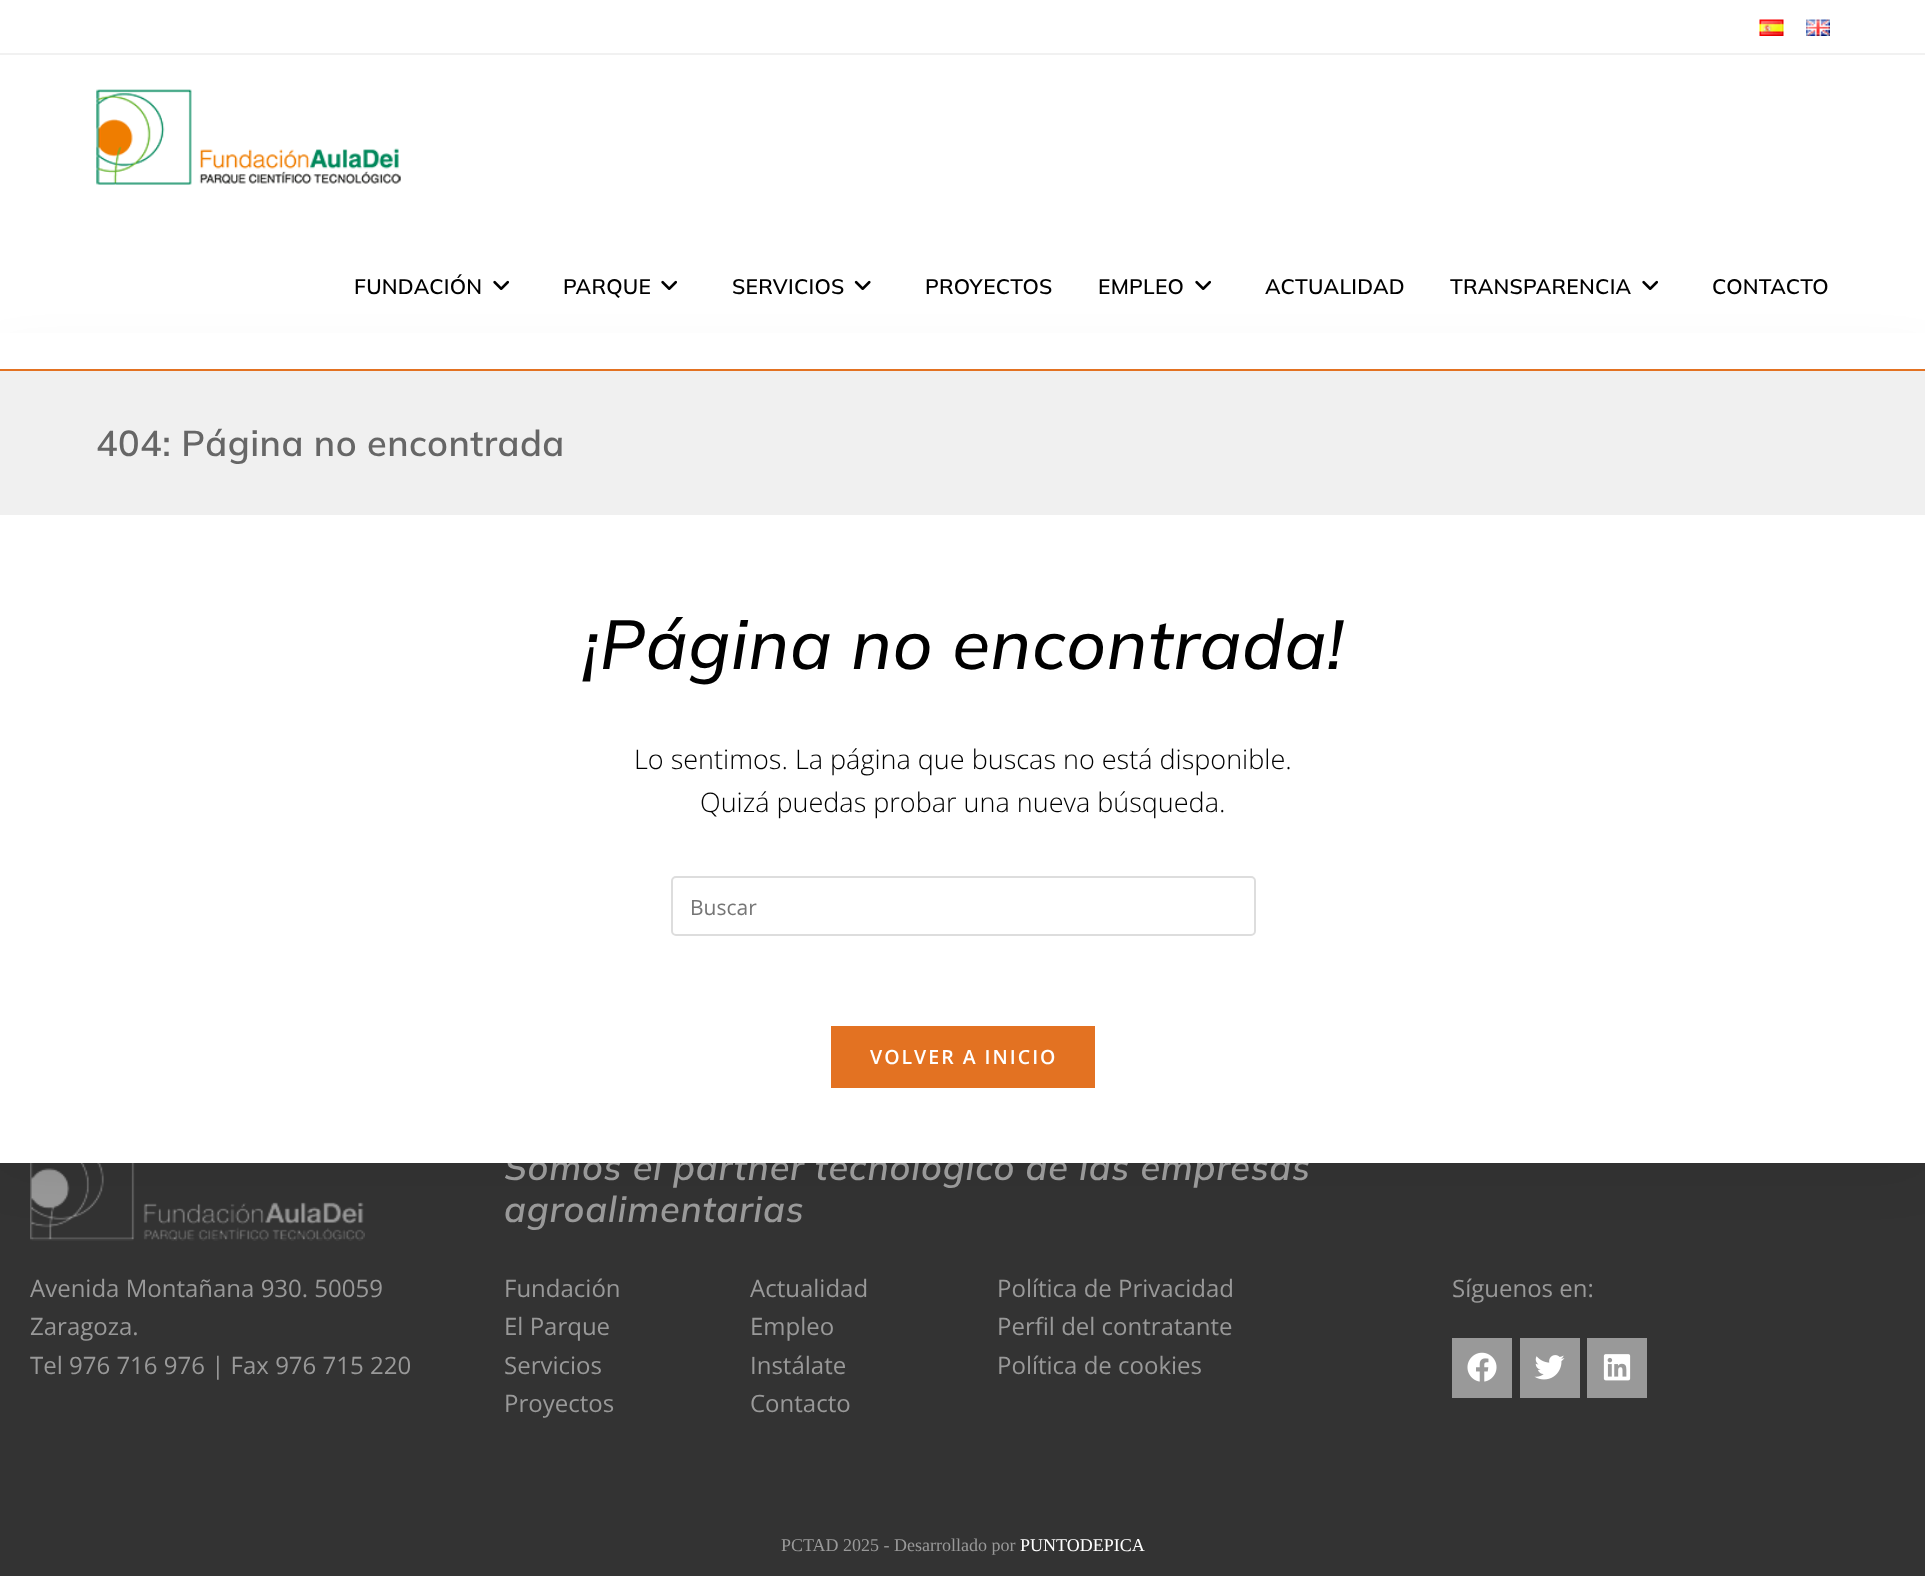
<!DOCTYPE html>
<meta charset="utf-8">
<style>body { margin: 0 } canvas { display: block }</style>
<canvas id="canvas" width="1925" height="1576"></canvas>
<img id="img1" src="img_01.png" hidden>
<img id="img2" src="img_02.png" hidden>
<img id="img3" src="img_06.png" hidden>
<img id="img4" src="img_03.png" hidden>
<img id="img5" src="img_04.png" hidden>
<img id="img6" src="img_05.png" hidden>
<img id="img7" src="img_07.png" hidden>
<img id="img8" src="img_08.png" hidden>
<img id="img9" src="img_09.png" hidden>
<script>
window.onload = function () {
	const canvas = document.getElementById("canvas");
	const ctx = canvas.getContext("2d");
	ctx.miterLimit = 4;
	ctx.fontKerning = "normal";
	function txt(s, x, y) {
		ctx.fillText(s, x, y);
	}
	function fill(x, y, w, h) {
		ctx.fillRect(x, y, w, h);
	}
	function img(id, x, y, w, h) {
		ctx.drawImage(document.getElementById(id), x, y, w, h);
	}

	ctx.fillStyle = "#FFFFFF";
	fill(0, 0, 1925, 1576);
	ctx.fillStyle = "#F1F1F1";
	fill(0, 53, 1925, 2);
	img("img1", 1759, 19, 25, 17);
	img("img2", 1806, 19, 24, 17);
	ctx.fillStyle = "#333333";
	fill(0, 1163, 1925, 413);
	img("img3", 30, 1163, 335, 78);
	ctx.fillStyle = "rgba(0, 0, 0, 0.1)";
	ctx.filter = "blur(30px)";
	ctx.beginPath();
	ctx.rect(0, 371, 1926, 792);
	ctx.fill();
	ctx.filter = "none";
	ctx.fillStyle = "#FFFFFF";
	fill(0, 333, 1925, 36);
	ctx.fillStyle = "#E37222";
	fill(0, 369, 1925, 2);
	img("img4", 96, 89, 305, 96);
	img("img5", 493, 280, 16, 10);
	img("img5", 661, 280, 16, 10);
	img("img6", 854, 280, 17, 10);
	img("img5", 1195, 280, 16, 10);
	img("img5", 1642, 280, 16, 10);
	ctx.fillStyle = "#F0F0F0";
	fill(0, 371, 1925, 144);
	ctx.fillStyle = "#999999";
	fill(1452, 1338, 60, 60);
	img("img7", 1467, 1352, 30, 30);
	fill(1520, 1338, 60, 60);
	img("img8", 1534, 1355, 31, 25);
	fill(1587, 1338, 60, 60);
	img("img9", 1603, 1354, 28, 27);
	ctx.letterSpacing = "0.25px";
	ctx.font = "600 21px Mulish";
	ctx.fillStyle = "#000000";
	txt("FUNDACIÓN", 354, 294);
	txt("PARQUE", 563, 294);
	txt("SERVICIOS", 732, 294);
	txt("PROYECTOS", 925, 294);
	txt("EMPLEO", 1098, 294);
	txt("ACTUALIDAD", 1265, 294);
	txt("TRANSPARENCIA", 1450, 294);
	txt("CONTACTO", 1712, 294);
	ctx.letterSpacing = "0.45px";
	ctx.font = "600 36px Mulish";
	ctx.fillStyle = "#666666";
	txt("404: Página no encontrada", 96, 456);
	ctx.letterSpacing = "0.75px";
	ctx.font = "italic 600 36px Mulish";
	ctx.fillStyle = "#999999";
	txt("Somos el partner tecnológico de las empresas", 504, 1180);
	ctx.fillStyle = "#FFFFFF";
	fill(0, 515, 1925, 648);
	ctx.fillStyle = "#E37222";
	fill(831, 1026, 264, 62);
	ctx.letterSpacing = "2px";
	ctx.font = "600 19.5px Open Sans";
	ctx.fillStyle = "#FFFFFF";
	txt("VOLVER A INICIO", 870, 1064);
	ctx.beginPath();
	ctx.roundRect(672, 877, 583, 58, 4);
	ctx.strokeStyle = "#DDDDDD";
	ctx.lineWidth = 2;
	ctx.stroke();
	ctx.letterSpacing = "0px";
	ctx.font = "21px Open Sans";
	ctx.fillStyle = "#757575";
	txt("Buscar", 690, 915);
	ctx.font = "300 27px Open Sans";
	ctx.fillStyle = "#000000";
	txt("Quizá puedas probar una nueva búsqueda.", 700, 812);
	txt("Lo sentimos. La página que buscas no está disponible.", 634, 769);
	ctx.letterSpacing = "0.75px";
	ctx.font = "italic 500 69px Mulish";
	txt("¡Página no encontrada!", 583, 669);
	ctx.font = "italic 600 36px Mulish";
	ctx.fillStyle = "#999999";
	txt("agroalimentarias", 504, 1222);
	ctx.letterSpacing = "0px";
	ctx.font = "24px Open Sans";
	txt("Avenida Montañana 930. 50059", 30, 1297);
	txt("Zaragoza.", 30, 1335);
	txt("Tel 976 716 976 | Fax 976 715 220", 30, 1374);
	txt("Fundación", 504, 1297);
	txt("El Parque", 504, 1335);
	txt("Servicios", 504, 1374);
	txt("Proyectos", 504, 1412);
	txt("Actualidad", 750, 1297);
	txt("Empleo", 750, 1335);
	txt("Instálate", 750, 1374);
	txt("Contacto", 750, 1412);
	txt("Política de Privacidad", 997, 1297);
	txt("Perfil del contratante", 997, 1335);
	txt("Política de cookies", 997, 1374);
	txt("Síguenos en:", 1452, 1297);
	ctx.font = "18px Liberation Serif";
	txt("PCTAD 2025 - Desarrollado por", 781, 1551);
	ctx.fillStyle = "#FFFFFF";
	txt("PUNTODEPICA", 1020, 1551);
};
</script>
